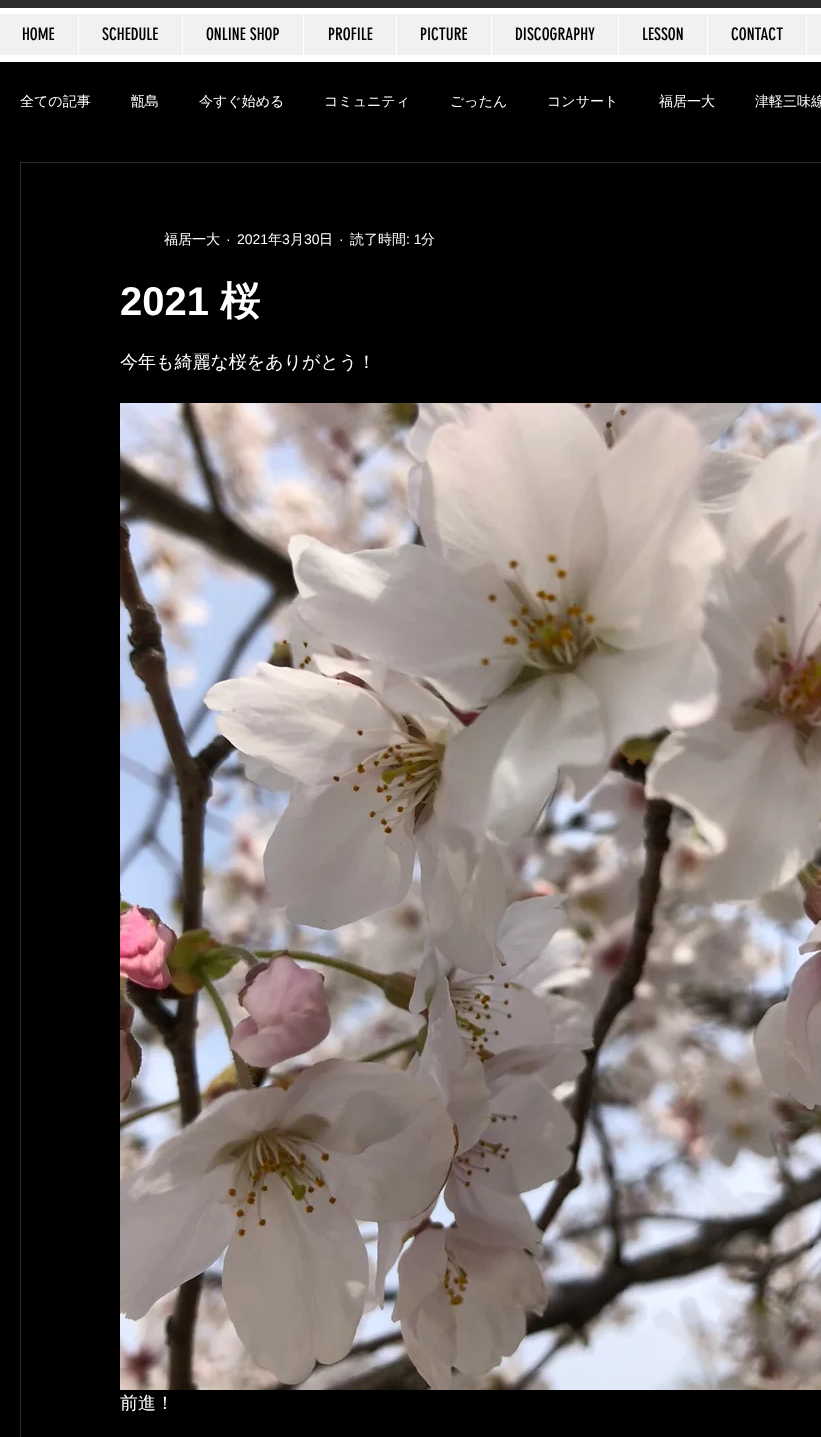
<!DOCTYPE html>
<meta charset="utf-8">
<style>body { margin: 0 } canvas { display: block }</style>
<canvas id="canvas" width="821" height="1437"></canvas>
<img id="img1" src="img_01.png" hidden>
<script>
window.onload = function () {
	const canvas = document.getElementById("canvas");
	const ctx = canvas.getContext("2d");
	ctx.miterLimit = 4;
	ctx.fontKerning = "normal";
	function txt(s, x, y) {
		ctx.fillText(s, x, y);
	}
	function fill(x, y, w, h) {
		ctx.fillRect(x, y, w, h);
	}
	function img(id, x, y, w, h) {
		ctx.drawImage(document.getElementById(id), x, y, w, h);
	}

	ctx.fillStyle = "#000000";
	fill(0, 0, 821, 1437);
	ctx.fillStyle = "#2D2D2D";
	fill(0, 0, 821, 8);
	ctx.fillStyle = "#FFFFFF";
	fill(0, 8, 821, 54);
	ctx.fillStyle = "#F1F1F1";
	fill(0, 14, 821, 41);
	ctx.fillStyle = "#FFFFFF";
	fill(78, 14, 1, 41);
	fill(182, 14, 1, 41);
	fill(303, 14, 1, 41);
	fill(396, 14, 1, 41);
	fill(491, 14, 1, 41);
	fill(618, 14, 1, 41);
	fill(707, 14, 1, 41);
	fill(806, 14, 1, 41);
	ctx.strokeStyle = "#2C2C2C";
	ctx.strokeRect(20.5, 162.5, 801, 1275);
	img("img1", 120, 403, 701, 987);
	ctx.font = "17px 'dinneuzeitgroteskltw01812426'";
	ctx.fillStyle = "#000000";
	txt("HOME", 22, 40);
	txt("SCHEDULE", 102, 40);
	txt("ONLINE SHOP", 206, 40);
	txt("PROFILE", 328, 40);
	txt("PICTURE", 420, 40);
	txt("DISCOGRAPHY", 515, 40);
	txt("LESSON", 642, 40);
	txt("CONTACT", 731, 40);
	ctx.font = "500 14px WenQuanYi Zen Hei";
	ctx.fillStyle = "#FFFFFF";
	txt("全ての記事", 20, 106);
	txt("甑島", 131, 106);
	txt("今すぐ始める", 199, 106);
	txt("コミュニティ", 324, 106);
	txt("ごったん", 450, 106);
	txt("コンサート", 547, 106);
	txt("福居一大", 659, 106);
	txt("津軽三味線", 755, 106);
	txt("福居一大", 164, 244);
	ctx.font = "14px Liberation Sans";
	txt("·", 226, 244);
	txt("2021", 237, 244);
	ctx.font = "500 14px WenQuanYi Zen Hei";
	txt("年", 268, 244);
	ctx.font = "14px Liberation Sans";
	txt("3", 282, 244);
	ctx.font = "500 14px WenQuanYi Zen Hei";
	txt("月", 290, 244);
	ctx.font = "14px Liberation Sans";
	txt("30", 304, 244);
	ctx.font = "500 14px WenQuanYi Zen Hei";
	txt("日", 319, 244);
	ctx.font = "14px Liberation Sans";
	txt("·", 339, 244);
	ctx.font = "500 14px WenQuanYi Zen Hei";
	txt("読了時間", 350, 244);
	ctx.font = "14px Liberation Sans";
	txt(": 1", 406, 244);
	ctx.font = "500 14px WenQuanYi Zen Hei";
	txt("分", 421, 244);
	ctx.font = "bold 40px Liberation Sans";
	txt("2021", 120, 315);
	ctx.font = "bold 40px WenQuanYi Zen Hei";
	txt("桜", 220, 315);
	ctx.font = "500 18px WenQuanYi Zen Hei";
	txt("今年も綺麗な桜をありがとう！", 120, 368);
	txt("前進！", 120, 1409);
};
</script>
